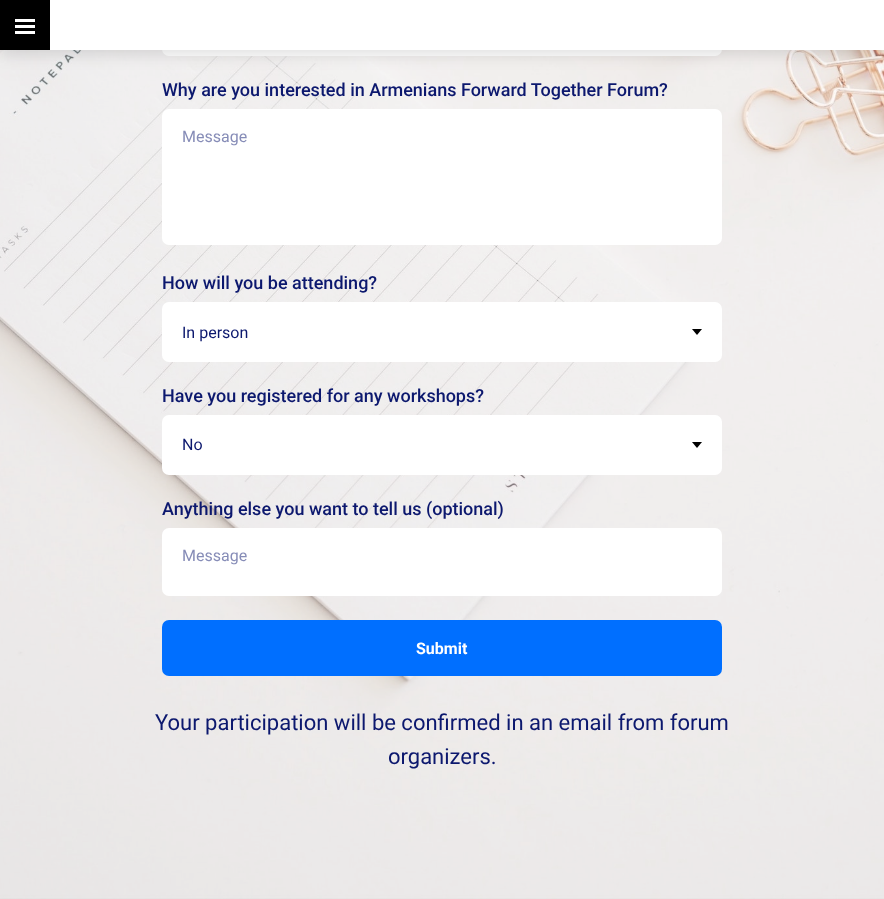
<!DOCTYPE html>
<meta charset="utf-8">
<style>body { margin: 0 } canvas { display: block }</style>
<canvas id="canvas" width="884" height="899"></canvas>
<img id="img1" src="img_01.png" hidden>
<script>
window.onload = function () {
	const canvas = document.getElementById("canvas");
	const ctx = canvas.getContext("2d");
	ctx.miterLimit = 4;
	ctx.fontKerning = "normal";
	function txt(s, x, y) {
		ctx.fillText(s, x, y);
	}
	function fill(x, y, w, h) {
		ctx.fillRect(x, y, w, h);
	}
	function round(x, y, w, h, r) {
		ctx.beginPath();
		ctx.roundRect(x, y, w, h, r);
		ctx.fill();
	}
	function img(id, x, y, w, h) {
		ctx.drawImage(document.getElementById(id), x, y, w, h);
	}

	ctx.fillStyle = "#FFFFFF";
	fill(0, 0, 884, 899);
	img("img1", 0, 50, 884, 849);
	round(162, 0, 560, 56, 7);
	ctx.fillStyle = "rgba(0, 0, 0, 0.13)";
	ctx.filter = "blur(8px)";
	ctx.beginPath();
	ctx.rect(0, 4, 884, 50);
	ctx.fill();
	ctx.filter = "none";
	ctx.fillStyle = "#FFFFFF";
	fill(50, 0, 834, 50);
	ctx.fillStyle = "#000000";
	fill(0, 0, 50, 50);
	ctx.fillStyle = "#FFFFFF";
	fill(15, 25, 20, 3);
	fill(15, 19, 20, 3);
	fill(15, 31, 20, 3);
	round(162, 109, 560, 136, 7);
	round(162, 302, 560, 60, 7);
	ctx.fillStyle = "#000000";
	ctx.beginPath();
	ctx.moveTo(692, 329);
	ctx.lineTo(702, 329);
	ctx.lineTo(697, 335);
	ctx.closePath();
	ctx.fill();
	ctx.fillStyle = "#FFFFFF";
	round(162, 415, 560, 60, 7);
	ctx.fillStyle = "#000000";
	ctx.beginPath();
	ctx.moveTo(692, 442);
	ctx.lineTo(702, 442);
	ctx.lineTo(697, 448);
	ctx.closePath();
	ctx.fill();
	ctx.fillStyle = "#FFFFFF";
	round(162, 528, 560, 68, 7);
	ctx.fillStyle = "#006FFF";
	round(162, 620, 560, 56, 7);
	ctx.font = "500 18px Roboto";
	ctx.fillStyle = "#0C186E";
	txt("Why are you interested in Armenians Forward Together Forum?", 162, 96);
	ctx.font = "16px Roboto";
	ctx.fillStyle = "#868CB7";
	txt("Message", 182, 142);
	ctx.font = "500 18px Roboto";
	ctx.fillStyle = "#0C186E";
	txt("How will you be attending?", 162, 289);
	ctx.font = "16px Roboto";
	txt("In person", 182, 338);
	ctx.font = "500 18px Roboto";
	txt("Have you registered for any workshops?", 162, 402);
	ctx.font = "16px Roboto";
	txt("No", 182, 450);
	ctx.font = "500 18px Roboto";
	txt("Anything else you want to tell us (optional)", 162, 515);
	ctx.font = "16px Roboto";
	ctx.fillStyle = "#868CB7";
	txt("Message", 182, 561);
	ctx.font = "bold 16px Roboto";
	ctx.fillStyle = "#FFFFFF";
	txt("Submit", 416, 654);
	ctx.font = "22px Roboto";
	ctx.fillStyle = "#0C186E";
	txt("Your participation will be confirmed in an email from forum", 155, 730);
	txt("organizers.", 388, 764);
};
</script>
